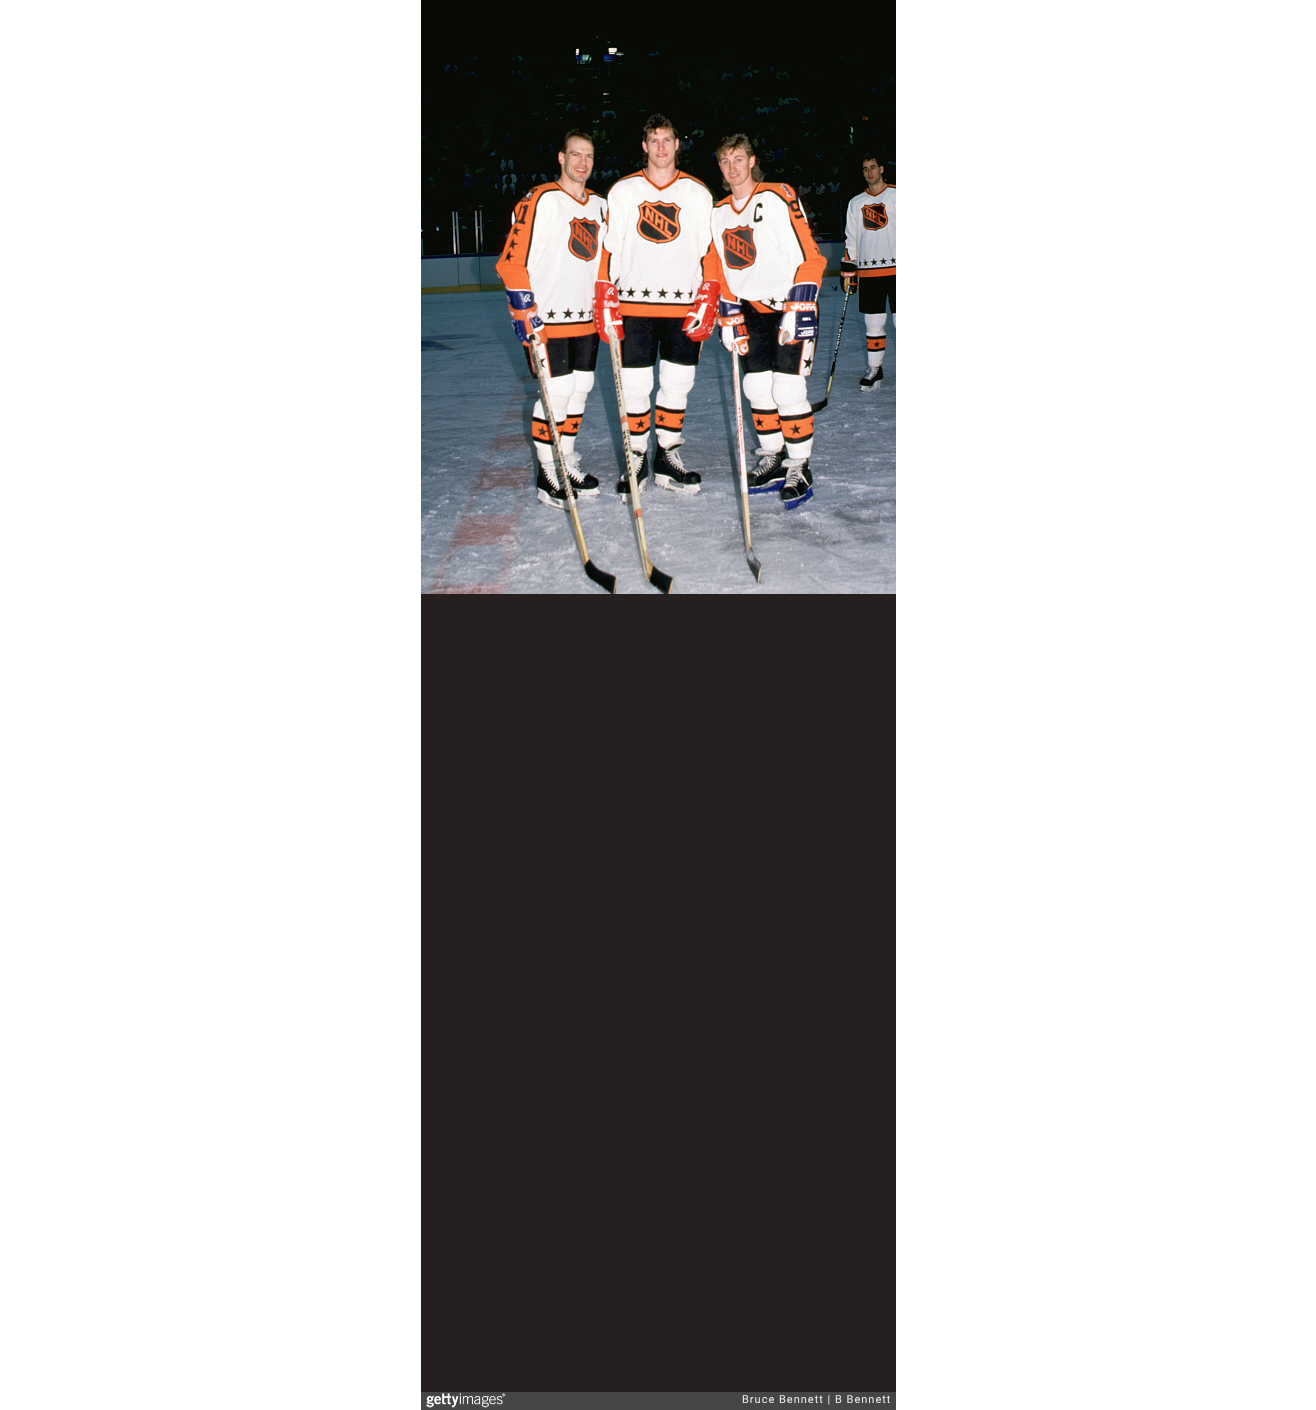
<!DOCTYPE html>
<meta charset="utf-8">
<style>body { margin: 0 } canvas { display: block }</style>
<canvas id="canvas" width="1316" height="1410"></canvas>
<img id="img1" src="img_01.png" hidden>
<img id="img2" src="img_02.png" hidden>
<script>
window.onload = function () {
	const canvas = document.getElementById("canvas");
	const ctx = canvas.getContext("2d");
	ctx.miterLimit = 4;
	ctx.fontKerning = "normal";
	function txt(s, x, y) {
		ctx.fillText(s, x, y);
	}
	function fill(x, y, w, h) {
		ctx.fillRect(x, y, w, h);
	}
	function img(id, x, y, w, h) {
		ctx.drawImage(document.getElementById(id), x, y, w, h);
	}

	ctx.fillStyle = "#FFFFFF";
	fill(0, 0, 1316, 1410);
	ctx.fillStyle = "#251F20";
	fill(421, 594, 475, 798);
	img("img1", 421, 0, 475, 594);
	ctx.fillStyle = "#474545";
	fill(421, 1392, 475, 18);
	img("img2", 426, 1393, 80, 15);
	ctx.letterSpacing = "1px";
	ctx.font = "11px Roboto";
	ctx.fillStyle = "#EEEEEE";
	txt("Bruce Bennett | B Bennett", 742, 1403);
};
</script>
